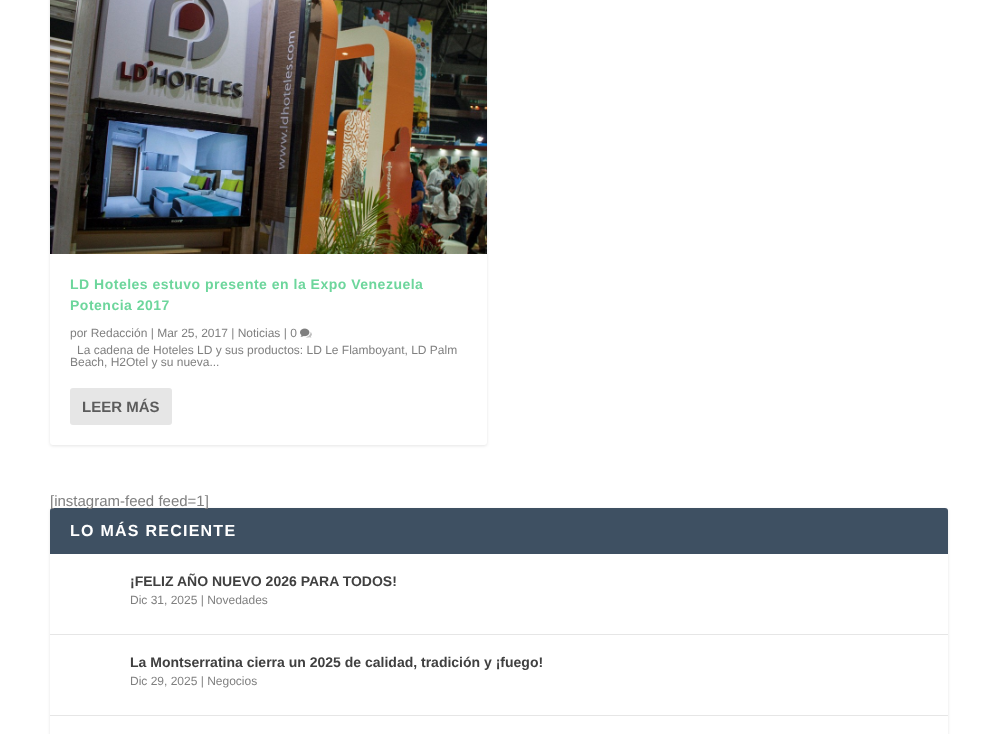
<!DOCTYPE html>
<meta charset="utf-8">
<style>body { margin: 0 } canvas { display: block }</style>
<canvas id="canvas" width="998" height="734"></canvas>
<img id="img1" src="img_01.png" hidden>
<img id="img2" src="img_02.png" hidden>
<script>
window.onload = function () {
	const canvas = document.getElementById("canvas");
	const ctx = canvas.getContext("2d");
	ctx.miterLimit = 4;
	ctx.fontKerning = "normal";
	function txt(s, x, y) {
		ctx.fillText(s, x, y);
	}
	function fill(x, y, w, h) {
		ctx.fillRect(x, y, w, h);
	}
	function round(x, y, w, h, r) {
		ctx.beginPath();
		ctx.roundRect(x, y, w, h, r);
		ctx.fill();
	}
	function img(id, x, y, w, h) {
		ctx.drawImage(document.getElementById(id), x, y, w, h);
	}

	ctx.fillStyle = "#FFFFFF";
	fill(0, 0, 998, 734);
	ctx.fillStyle = "rgba(0, 0, 0, 0.1)";
	ctx.filter = "blur(1.5px)";
	ctx.beginPath();
	ctx.roundRect(50, -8, 437, 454, 3);
	ctx.fill();
	ctx.filter = "none";
	ctx.fillStyle = "#FFFFFF";
	round(50, -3, 437, 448, 3);
	img("img1", 50, 0, 437, 254);
	img("img2", 300, 328, 12, 10);
	ctx.fillStyle = "#E6E6E6";
	round(70, 388, 102, 37, 3);
	ctx.fillStyle = "rgba(0, 0, 0, 0.1)";
	ctx.filter = "blur(1.5px)";
	ctx.beginPath();
	ctx.roundRect(50, 509, 898, 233, 3);
	ctx.fill();
	ctx.filter = "none";
	ctx.fillStyle = "#FFFFFF";
	round(50, 508, 898, 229, 3);
	ctx.fillStyle = "#3E5062";
	ctx.beginPath();
	ctx.roundRect(50, 508, 898, 46, [3, 3, 0, 0]);
	ctx.fill();
	ctx.fillStyle = "#E6E6E6";
	fill(50, 634, 898, 1);
	fill(50, 715, 898, 1);
	ctx.letterSpacing = "0.5px";
	ctx.font = "bold 14px Liberation Sans";
	ctx.fillStyle = "#6DD69C";
	txt("LD Hoteles estuvo presente en la Expo Venezuela", 70, 289);
	txt("Potencia 2017", 70, 310);
	ctx.letterSpacing = "0px";
	ctx.font = "12px Liberation Sans";
	ctx.fillStyle = "#808080";
	txt("por Redacción | Mar 25, 2017 | Noticias | 0", 70, 337);
	txt("La cadena de Hoteles LD y sus productos: LD Le Flamboyant, LD Palm", 77, 354);
	txt("Beach, H2Otel y su nueva...", 70, 366);
	ctx.font = "bold 15px Liberation Sans";
	ctx.fillStyle = "#5C5C5C";
	txt("LEER MÁS", 82, 412);
	ctx.font = "15px Liberation Sans";
	ctx.fillStyle = "#808080";
	txt("[instagram-feed feed=1]", 50, 506);
	ctx.letterSpacing = "1.25px";
	ctx.font = "bold 16px Liberation Sans";
	ctx.fillStyle = "#FFFFFF";
	txt("LO MÁS RECIENTE", 70, 536);
	ctx.letterSpacing = "0px";
	ctx.font = "bold 14px Liberation Sans";
	ctx.fillStyle = "#404040";
	txt("¡FELIZ AÑO NUEVO 2026 PARA TODOS!", 130, 586);
	ctx.font = "12px Liberation Sans";
	ctx.fillStyle = "#808080";
	txt("Dic 31, 2025 | Novedades", 130, 604);
	ctx.font = "bold 14px Liberation Sans";
	ctx.fillStyle = "#404040";
	txt("La Montserratina cierra un 2025 de calidad, tradición y ¡fuego!", 130, 667);
	ctx.font = "12px Liberation Sans";
	ctx.fillStyle = "#808080";
	txt("Dic 29, 2025 | Negocios", 130, 685);
};
</script>
